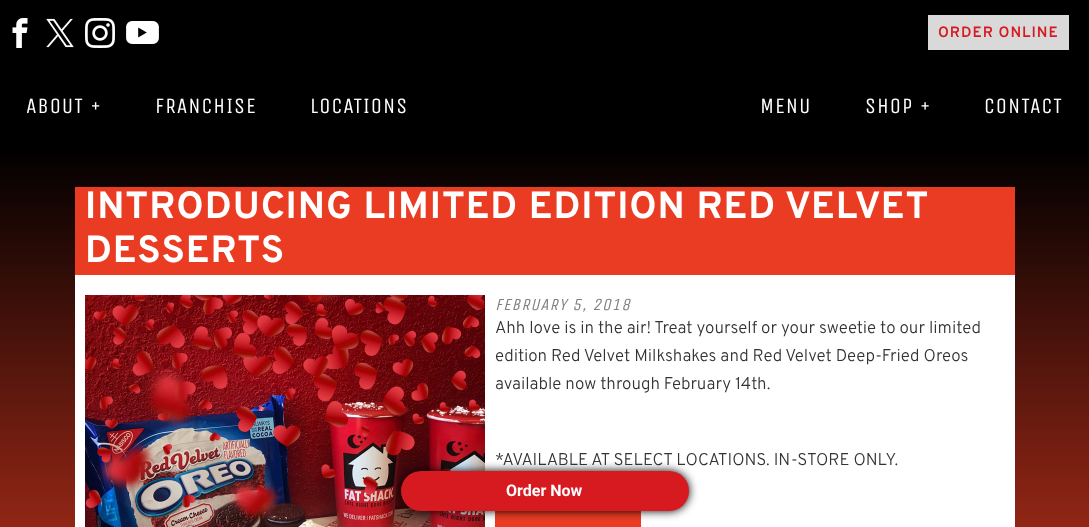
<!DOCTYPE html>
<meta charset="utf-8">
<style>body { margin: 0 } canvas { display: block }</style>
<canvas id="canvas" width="1089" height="527"></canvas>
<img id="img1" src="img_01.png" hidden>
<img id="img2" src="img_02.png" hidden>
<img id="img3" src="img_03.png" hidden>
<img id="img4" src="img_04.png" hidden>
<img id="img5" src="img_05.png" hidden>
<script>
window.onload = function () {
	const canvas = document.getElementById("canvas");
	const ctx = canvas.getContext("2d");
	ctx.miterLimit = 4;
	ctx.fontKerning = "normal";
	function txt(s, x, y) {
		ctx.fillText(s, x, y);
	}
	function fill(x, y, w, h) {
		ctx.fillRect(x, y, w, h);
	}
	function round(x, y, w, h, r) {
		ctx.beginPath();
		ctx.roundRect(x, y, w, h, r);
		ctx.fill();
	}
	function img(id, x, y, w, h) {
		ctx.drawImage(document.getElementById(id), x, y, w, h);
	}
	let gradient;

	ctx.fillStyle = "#000000";
	fill(0, 0, 1089, 527);
	img("img1", 12, 18, 16, 30);
	img("img2", 46, 18, 28, 30);
	img("img3", 85, 18, 30, 30);
	img("img4", 126, 21, 33, 23);
	ctx.fillStyle = "#D9D9D9";
	fill(928, 15, 141, 35);
	gradient = ctx.createLinearGradient(545, 147, 545, 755);
	gradient.addColorStop(0, "#000000");
	gradient.addColorStop(1, "#E93C22");
	ctx.fillStyle = gradient;
	fill(0, 154, 1089, 373);
	ctx.fillStyle = "#FFFFFF";
	fill(75, 275, 940, 252);
	ctx.fillStyle = "#E93C22";
	fill(75, 187, 940, 88);
	img("img5", 85, 295, 400, 232);
	fill(498, 511, 140, 16);
	ctx.strokeStyle = "#E93C22";
	ctx.lineWidth = 3;
	ctx.strokeRect(496.5, 486.5, 143, 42);
	ctx.fillStyle = "#000000";
	ctx.filter = "blur(5px)";
	ctx.beginPath();
	ctx.roundRect(401, 471, 288, 40, 20);
	ctx.fill();
	ctx.filter = "none";
	ctx.fillStyle = "#D71920";
	round(401, 471, 288, 40, 20);
	ctx.letterSpacing = "1px";
	ctx.font = "600 15px Overpass";
	txt("ORDER ONLINE", 938, 37);
	ctx.font = "22px Unica One";
	ctx.fillStyle = "#FFFFFF";
	txt("ABOUT +", 26, 113);
	txt("FRANCHISE", 155, 113);
	txt("LOCATIONS", 310, 113);
	txt("MENU", 760, 113);
	txt("SHOP +", 865, 113);
	txt("CONTACT", 984, 113);
	ctx.font = "bold 38px Overpass";
	txt("INTRODUCING LIMITED EDITION RED VELVET", 85, 218);
	txt("DESSERTS", 85, 262);
	ctx.font = "italic 17px Unica One";
	ctx.fillStyle = "#808080";
	txt("FEBRUARY 5, 2018", 495, 310);
	ctx.letterSpacing = "0px";
	ctx.font = "300 17px Overpass";
	ctx.fillStyle = "#333333";
	txt("Ahh love is in the air! Treat yourself or your sweetie to our limited", 495, 333);
	txt("edition Red Velvet Milkshakes and Red Velvet Deep-Fried Oreos", 495, 361);
	txt("available now through February 14th.", 495, 389);
	txt("*AVAILABLE AT SELECT LOCATIONS. IN-STORE ONLY.", 495, 465);
	ctx.font = "bold 16px Roboto";
	ctx.fillStyle = "#FFFFFF";
	txt("Order Now", 506, 496);
};
</script>
